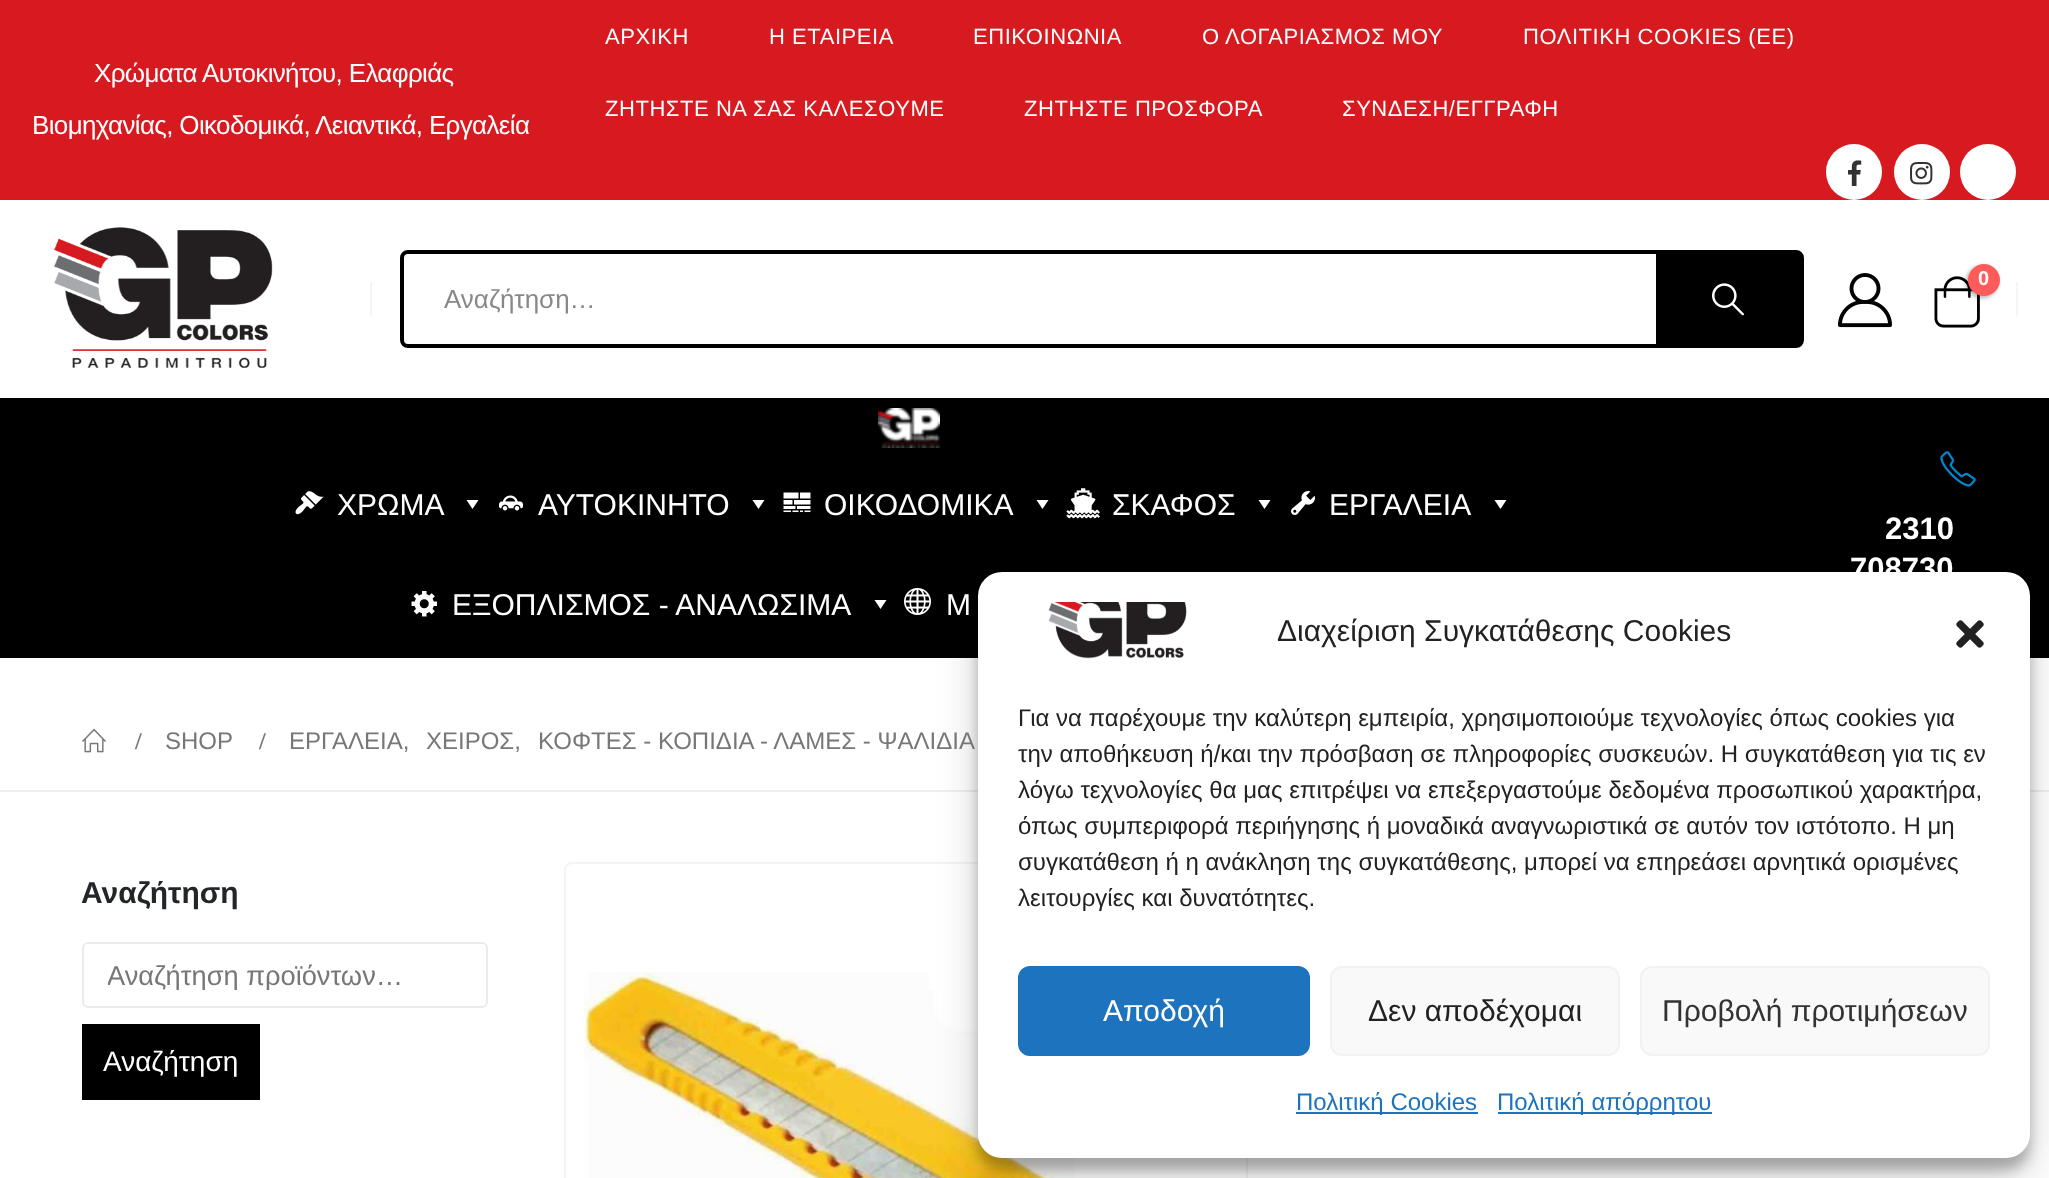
<!DOCTYPE html>
<meta charset="utf-8">
<style>body { margin: 0 } canvas { display: block }</style>
<canvas id="canvas" width="2049" height="1178"></canvas>
<img id="img1" src="img_01.png" hidden>
<img id="img2" src="img_02.png" hidden>
<img id="img3" src="img_03.png" hidden>
<img id="img4" src="img_04.png" hidden>
<img id="img5" src="img_05.png" hidden>
<img id="img6" src="img_06.png" hidden>
<img id="img7" src="img_07.png" hidden>
<img id="img8" src="img_08.png" hidden>
<img id="img9" src="img_09.png" hidden>
<img id="img10" src="img_10.png" hidden>
<img id="img11" src="img_11.png" hidden>
<img id="img12" src="img_12.png" hidden>
<img id="img13" src="img_13.png" hidden>
<img id="img14" src="img_14.png" hidden>
<img id="img15" src="img_15.png" hidden>
<img id="img16" src="img_16.png" hidden>
<img id="img17" src="img_17.png" hidden>
<img id="img18" src="img_18.png" hidden>
<img id="img19" src="img_19.png" hidden>
<script>
window.onload = function () {
	const canvas = document.getElementById("canvas");
	const ctx = canvas.getContext("2d");
	ctx.miterLimit = 4;
	ctx.fontKerning = "normal";
	function txt(s, x, y) {
		ctx.fillText(s, x, y);
	}
	function fill(x, y, w, h) {
		ctx.fillRect(x, y, w, h);
	}
	function round(x, y, w, h, r) {
		ctx.beginPath();
		ctx.roundRect(x, y, w, h, r);
		ctx.fill();
	}
	function img(id, x, y, w, h) {
		ctx.drawImage(document.getElementById(id), x, y, w, h);
	}

	ctx.fillStyle = "#FFFFFF";
	fill(0, 0, 2049, 1178);
	ctx.fillStyle = "#D71920";
	fill(0, 0, 2049, 200);
	ctx.fillStyle = "#FFFFFF";
	ctx.beginPath();
	ctx.arc(1854, 172, 28, 0, Math.PI * 2);
	ctx.fill();
	img("img1", 1848, 160, 14, 26);
	ctx.beginPath();
	ctx.arc(1922, 172, 28, 0, Math.PI * 2);
	ctx.fill();
	img("img2", 1910, 162, 23, 23);
	ctx.beginPath();
	ctx.arc(1988, 172, 28, 0, Math.PI * 2);
	ctx.fill();
	img("img3", 53, 227, 220, 141);
	ctx.fillStyle = "#F5F5F5";
	fill(370, 282, 2, 34);
	ctx.beginPath();
	ctx.roundRect(402, 252, 1400, 94, 6);
	ctx.strokeStyle = "#000000";
	ctx.lineWidth = 4;
	ctx.stroke();
	ctx.fillStyle = "#000000";
	fill(1656, 254, 144, 90);
	img("img4", 1712, 283, 32, 33);
	img("img5", 1838, 273, 54, 55);
	img("img6", 1934, 276, 46, 52);
	ctx.fillStyle = "rgba(0, 0, 0, 0.3)";
	ctx.filter = "blur(2px)";
	ctx.beginPath();
	ctx.roundRect(1966, 266, 32, 32, 16);
	ctx.fill();
	ctx.filter = "none";
	ctx.fillStyle = "#FF5B5B";
	ctx.beginPath();
	ctx.arc(1984, 280, 16, 0, Math.PI * 2);
	ctx.fill();
	ctx.fillStyle = "#F5F5F5";
	fill(2016, 282, 2, 34);
	ctx.fillStyle = "#000000";
	fill(0, 398, 2049, 260);
	img("img7", 878, 408, 62, 40);
	img("img8", 295, 491, 29, 24);
	ctx.fillStyle = "#FFFFFF";
	ctx.beginPath();
	ctx.moveTo(478.5, 500);
	ctx.lineTo(472.5, 509);
	ctx.lineTo(466.5, 500);
	ctx.closePath();
	ctx.fill();
	img("img9", 499, 495, 24, 16);
	ctx.beginPath();
	ctx.moveTo(764.5, 500);
	ctx.lineTo(758.5, 509);
	ctx.lineTo(752.5, 500);
	ctx.closePath();
	ctx.fill();
	img("img10", 783, 492, 28, 21);
	ctx.beginPath();
	ctx.moveTo(1048.5, 500);
	ctx.lineTo(1042.5, 509);
	ctx.lineTo(1036.5, 500);
	ctx.closePath();
	ctx.fill();
	img("img11", 1066, 488, 34, 31);
	ctx.beginPath();
	ctx.moveTo(1270.5, 500);
	ctx.lineTo(1264.5, 509);
	ctx.lineTo(1258.5, 500);
	ctx.closePath();
	ctx.fill();
	img("img12", 1291, 491, 24, 24);
	ctx.beginPath();
	ctx.moveTo(1506.5, 500);
	ctx.lineTo(1500.5, 509);
	ctx.lineTo(1494.5, 500);
	ctx.closePath();
	ctx.fill();
	img("img13", 411, 591, 26, 26);
	ctx.beginPath();
	ctx.moveTo(886.5, 600);
	ctx.lineTo(880.5, 609);
	ctx.lineTo(874.5, 600);
	ctx.closePath();
	ctx.fill();
	img("img14", 904, 588, 27, 27);
	img("img15", 1940, 451, 36, 36);
	ctx.fillStyle = "#EEEEEE";
	fill(0, 790, 2049, 2);
	img("img16", 82, 728, 24, 25);
	ctx.beginPath();
	ctx.roundRect(83, 943, 404, 64, 5);
	ctx.strokeStyle = "#EBEBEB";
	ctx.lineWidth = 2;
	ctx.stroke();
	ctx.fillStyle = "#000000";
	fill(82, 1024, 178, 76);
	ctx.beginPath();
	ctx.roundRect(565, 863, 682, 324, 7);
	ctx.strokeStyle = "#F4F4F4";
	ctx.stroke();
	img("img17", 583, 972, 492, 206);
	ctx.fillStyle = "rgba(0, 0, 0, 0.23)";
	ctx.filter = "blur(6px)";
	ctx.beginPath();
	ctx.roundRect(978, 584, 1052, 586, 24);
	ctx.fill();
	ctx.filter = "none";
	ctx.fillStyle = "rgba(0, 0, 0, 0.19)";
	ctx.filter = "blur(20px)";
	ctx.beginPath();
	ctx.roundRect(978, 592, 1052, 586, 24);
	ctx.fill();
	ctx.filter = "none";
	ctx.fillStyle = "#FFFFFF";
	round(978, 572, 1052, 586, 24);
	img("img18", 1048, 602, 139, 57);
	img("img19", 1956, 620, 28, 28);
	ctx.fillStyle = "#1E73BE";
	ctx.beginPath();
	ctx.roundRect(1019, 967, 290, 88, 11);
	ctx.fill();
	ctx.strokeStyle = "#1E73BE";
	ctx.stroke();
	ctx.fillStyle = "#F9F9F9";
	ctx.beginPath();
	ctx.roundRect(1331, 967, 288, 88, 11);
	ctx.fill();
	ctx.strokeStyle = "#F2F2F2";
	ctx.stroke();
	ctx.beginPath();
	ctx.roundRect(1641, 967, 348, 88, 11);
	ctx.fill();
	ctx.stroke();
	ctx.fillStyle = "#1E73BE";
	fill(1296, 1112, 182, 2);
	fill(1498, 1112, 214, 2);
	ctx.letterSpacing = "-0.65px";
	ctx.font = "26px Liberation Sans";
	ctx.fillStyle = "#FFFFFF";
	txt("Χρώματα Αυτοκινήτου, Ελαφριάς", 94, 82);
	txt("Βιομηχανίας, Οικοδομικά, Λειαντικά, Εργαλεία", 32, 134);
	ctx.letterSpacing = "0.55px";
	ctx.font = "22px Liberation Sans";
	txt("ΑΡΧΙΚΗ", 605, 44);
	txt("Η ΕΤΑΙΡΕΙΑ", 769, 44);
	txt("ΕΠΙΚΟΙΝΩΝΙΑ", 973, 44);
	txt("Ο ΛΟΓΑΡΙΑΣΜΟΣ ΜΟΥ", 1202, 44);
	txt("ΠΟΛΙΤΙΚΗ COOKIES (ΕΕ)", 1523, 44);
	txt("ΖΗΤΗΣΤΕ ΝΑ ΣΑΣ ΚΑΛΕΣΟΥΜΕ", 605, 116);
	txt("ΖΗΤΗΣΤΕ ΠΡΟΣΦΟΡΑ", 1024, 116);
	txt("ΣΥΝΔΕΣΗ/ΕΓΓΡΑΦΗ", 1342, 116);
	ctx.letterSpacing = "0px";
	ctx.font = "26px Liberation Sans";
	ctx.fillStyle = "#888888";
	txt("Αναζήτηση…", 444, 308);
	ctx.font = "bold 20px Liberation Sans";
	ctx.fillStyle = "#FFFFFF";
	txt("0", 1978, 285);
	ctx.font = "30px Liberation Sans";
	txt("ΧΡΩΜΑ", 337, 515);
	txt("ΑΥΤΟΚΙΝΗΤΟ", 538, 515);
	txt("ΟΙΚΟΔΟΜΙΚΑ", 824, 515);
	txt("ΣΚΑΦΟΣ", 1112, 515);
	txt("ΕΡΓΑΛΕΙΑ", 1329, 515);
	txt("ΕΞΟΠΛΙΣΜΟΣ - ΑΝΑΛΩΣΙΜΑ", 452, 615);
	txt("Μ", 946, 615);
	ctx.font = "bold 31px Liberation Sans";
	txt("2310", 1885, 539);
	txt("708730", 1850, 579);
	ctx.font = "bold 24px Liberation Serif";
	ctx.fillStyle = "#777777";
	txt("/", 135, 749);
	ctx.font = "24px Liberation Sans";
	txt("SHOP", 165, 749);
	ctx.font = "bold 24px Liberation Serif";
	txt("/", 259, 749);
	ctx.font = "24px Liberation Sans";
	txt("ΕΡΓΑΛΕΙΑ,", 289, 749);
	txt("ΧΕΙΡΟΣ,", 426, 749);
	txt("ΚΟΦΤΕΣ - ΚΟΠΙΔΙΑ - ΛΑΜΕΣ - ΨΑΛΙΔΙΑ", 538, 749);
	ctx.font = "bold 30px Liberation Sans";
	ctx.fillStyle = "#222529";
	txt("Αναζήτηση", 81, 903);
	ctx.save();
	ctx.beginPath();
	ctx.rect(108, 960, 326, 30);
	ctx.clip();
	ctx.font = "27.25px Liberation Sans";
	ctx.fillStyle = "#777777";
	txt("Αναζήτηση προϊόντων…", 107, 985);
	ctx.restore();
	ctx.font = "28px Liberation Sans";
	ctx.fillStyle = "#FFFFFF";
	txt("Αναζήτηση", 103, 1071);
	ctx.font = "30px Liberation Sans";
	ctx.fillStyle = "#222222";
	txt("Διαχείριση Συγκατάθεσης Cookies", 1277, 641);
	ctx.font = "24px Liberation Sans";
	txt("Για να παρέχουμε την καλύτερη εμπειρία, χρησιμοποιούμε τεχνολογίες όπως cookies για", 1018, 726);
	txt("την αποθήκευση ή/και την πρόσβαση σε πληροφορίες συσκευών. Η συγκατάθεση για τις εν", 1018, 762);
	txt("λόγω τεχνολογίες θα μας επιτρέψει να επεξεργαστούμε δεδομένα προσωπικού χαρακτήρα,", 1018, 798);
	txt("όπως συμπεριφορά περιήγησης ή μοναδικά αναγνωριστικά σε αυτόν τον ιστότοπο. Η μη", 1018, 834);
	txt("συγκατάθεση ή η ανάκληση της συγκατάθεσης, μπορεί να επηρεάσει αρνητικά ορισμένες", 1018, 870);
	txt("λειτουργίες και δυνατότητες.", 1018, 906);
	ctx.font = "30px Liberation Sans";
	ctx.fillStyle = "#FFFFFF";
	txt("Αποδοχή", 1103, 1021);
	ctx.fillStyle = "#222222";
	txt("Δεν αποδέχομαι", 1368, 1021);
	ctx.fillStyle = "#333333";
	txt("Προβολή προτιμήσεων", 1662, 1021);
	ctx.font = "24px Liberation Sans";
	ctx.fillStyle = "#1E73BE";
	txt("Πολιτική Cookies", 1296, 1110);
	txt("Πολιτική απόρρητου", 1497, 1110);
};
</script>
